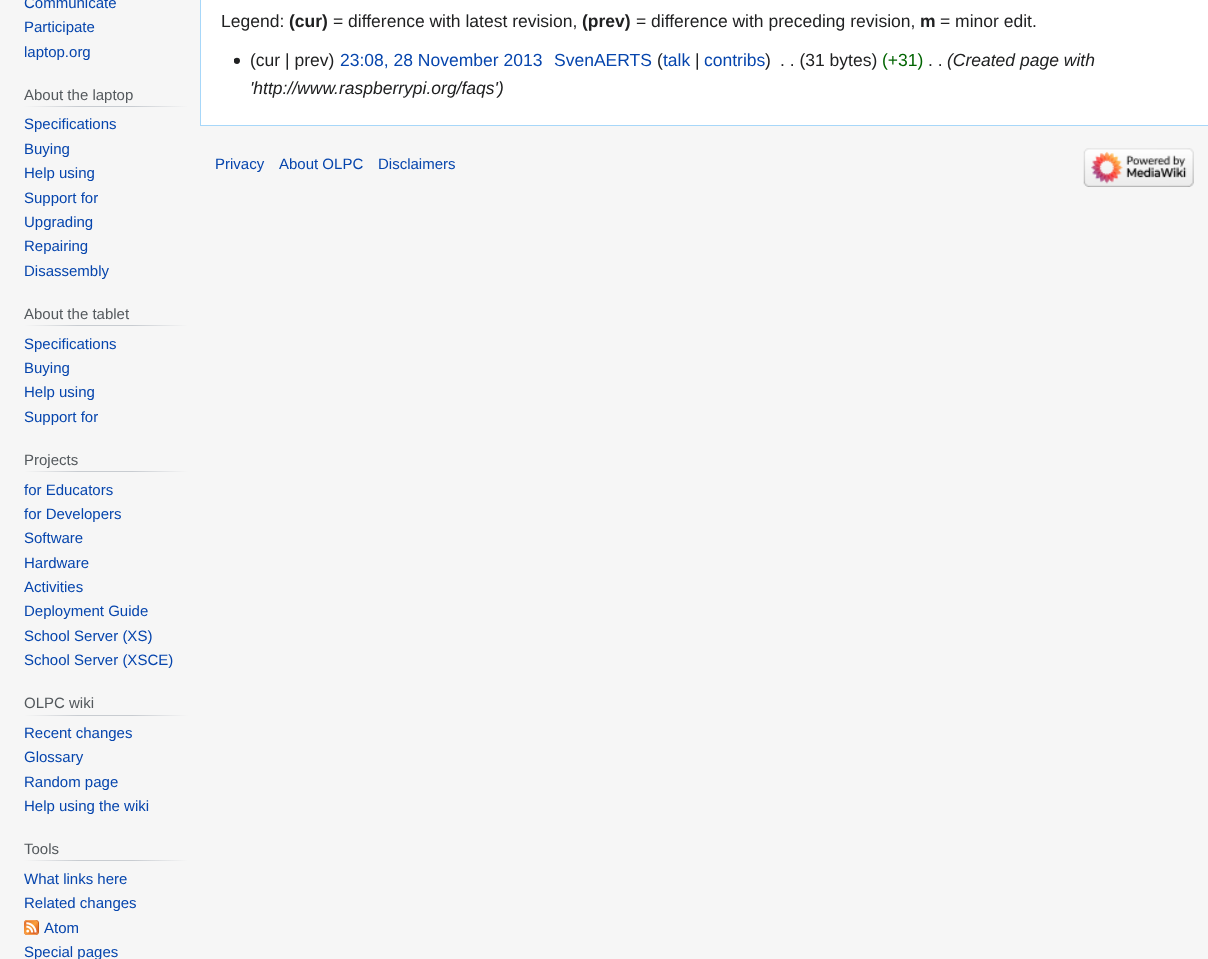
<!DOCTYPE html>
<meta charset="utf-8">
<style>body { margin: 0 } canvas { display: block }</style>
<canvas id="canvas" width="1208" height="959"></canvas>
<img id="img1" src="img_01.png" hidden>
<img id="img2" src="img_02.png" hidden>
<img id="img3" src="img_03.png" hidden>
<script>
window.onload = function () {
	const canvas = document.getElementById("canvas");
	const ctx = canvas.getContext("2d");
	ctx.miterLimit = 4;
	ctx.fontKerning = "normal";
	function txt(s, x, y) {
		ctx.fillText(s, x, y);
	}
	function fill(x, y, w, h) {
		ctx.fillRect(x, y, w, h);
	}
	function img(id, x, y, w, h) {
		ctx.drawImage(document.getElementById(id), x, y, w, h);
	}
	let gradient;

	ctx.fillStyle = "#F6F6F6";
	fill(0, 0, 1208, 959);
	gradient = ctx.createLinearGradient(24, 107, 188, 107);
	gradient.addColorStop(0, "#F6F6F6");
	gradient.addColorStop(0.33, "#C8CCD1");
	gradient.addColorStop(0.66, "#C8CCD1");
	gradient.addColorStop(1, "#F6F6F6");
	ctx.fillStyle = gradient;
	fill(24, 106, 164, 1);
	gradient = ctx.createLinearGradient(24, 326, 188, 326);
	gradient.addColorStop(0, "#F6F6F6");
	gradient.addColorStop(0.33, "#C8CCD1");
	gradient.addColorStop(0.66, "#C8CCD1");
	gradient.addColorStop(1, "#F6F6F6");
	ctx.fillStyle = gradient;
	fill(24, 325, 164, 1);
	gradient = ctx.createLinearGradient(24, 472, 188, 472);
	gradient.addColorStop(0, "#F6F6F6");
	gradient.addColorStop(0.33, "#C8CCD1");
	gradient.addColorStop(0.66, "#C8CCD1");
	gradient.addColorStop(1, "#F6F6F6");
	ctx.fillStyle = gradient;
	fill(24, 471, 164, 1);
	gradient = ctx.createLinearGradient(24, 716, 188, 716);
	gradient.addColorStop(0, "#F6F6F6");
	gradient.addColorStop(0.33, "#C8CCD1");
	gradient.addColorStop(0.66, "#C8CCD1");
	gradient.addColorStop(1, "#F6F6F6");
	ctx.fillStyle = gradient;
	fill(24, 715, 164, 1);
	gradient = ctx.createLinearGradient(24, 861, 188, 861);
	gradient.addColorStop(0, "#F6F6F6");
	gradient.addColorStop(0.33, "#C8CCD1");
	gradient.addColorStop(0.66, "#C8CCD1");
	gradient.addColorStop(1, "#F6F6F6");
	ctx.fillStyle = gradient;
	fill(24, 860, 164, 1);
	img("img1", 24, 920, 15, 15);
	ctx.fillStyle = "#FFFFFF";
	fill(201, 0, 1007, 125);
	ctx.fillStyle = "#A7D7F9";
	fill(200, 125, 1008, 1);
	fill(200, 0, 1, 126);
	img("img2", 234, 57, 6, 7);
	img("img3", 1083, 148, 111, 39);
	ctx.font = "15px Liberation Sans";
	ctx.fillStyle = "#0645AD";
	txt("Communicate", 24, 8);
	txt("Participate", 24, 32);
	txt("laptop.org", 24, 57);
	ctx.fillStyle = "#54595D";
	txt("About the laptop", 24, 100);
	ctx.fillStyle = "#0645AD";
	txt("Specifications", 24, 129);
	txt("Buying", 24, 154);
	txt("Help using", 24, 178);
	txt("Support for", 24, 203);
	txt("Upgrading", 24, 227);
	txt("Repairing", 24, 251);
	txt("Disassembly", 24, 276);
	ctx.fillStyle = "#54595D";
	txt("About the tablet", 24, 319);
	ctx.fillStyle = "#0645AD";
	txt("Specifications", 24, 349);
	txt("Buying", 24, 373);
	txt("Help using", 24, 397);
	txt("Support for", 24, 422);
	ctx.fillStyle = "#54595D";
	txt("Projects", 24, 465);
	ctx.fillStyle = "#0645AD";
	txt("for Educators", 24, 495);
	txt("for Developers", 24, 519);
	txt("Software", 24, 543);
	txt("Hardware", 24, 568);
	txt("Activities", 24, 592);
	txt("Deployment Guide", 24, 616);
	txt("School Server (XS)", 24, 641);
	txt("School Server (XSCE)", 24, 665);
	ctx.fillStyle = "#54595D";
	txt("OLPC wiki", 24, 708);
	ctx.fillStyle = "#0645AD";
	txt("Recent changes", 24, 738);
	txt("Glossary", 24, 762);
	txt("Random page", 24, 787);
	txt("Help using the wiki", 24, 811);
	ctx.fillStyle = "#54595D";
	txt("Tools", 24, 854);
	ctx.fillStyle = "#0645AD";
	txt("What links here", 24, 884);
	txt("Related changes", 24, 908);
	txt("Atom", 44, 933);
	txt("Special pages", 24, 957);
	ctx.font = "17.5px Liberation Sans";
	ctx.fillStyle = "#202122";
	txt("Legend:", 221, 27);
	ctx.font = "bold 17.5px Liberation Sans";
	txt("(cur)", 289, 27);
	ctx.font = "17.5px Liberation Sans";
	txt("= difference with latest revision,", 333, 27);
	ctx.font = "bold 17.5px Liberation Sans";
	txt("(prev)", 582, 27);
	ctx.font = "17.5px Liberation Sans";
	txt("= difference with preceding revision,", 636, 27);
	ctx.font = "bold 17.5px Liberation Sans";
	txt("m", 920, 27);
	ctx.font = "17.5px Liberation Sans";
	txt("= minor edit.", 940, 27);
	txt("(cur | prev)", 250, 66);
	ctx.fillStyle = "#0645AD";
	txt("23:08, 28 November 2013", 340, 66);
	txt("SvenAERTS", 554, 66);
	ctx.fillStyle = "#202122";
	txt("(", 657, 66);
	ctx.fillStyle = "#0645AD";
	txt("talk", 663, 66);
	ctx.fillStyle = "#202122";
	txt("|", 695, 66);
	ctx.fillStyle = "#0645AD";
	txt("contribs", 704, 66);
	ctx.fillStyle = "#202122";
	txt(")", 765, 66);
	txt(". . (31 bytes)", 780, 66);
	ctx.fillStyle = "#006400";
	txt("(+31)", 882, 66);
	ctx.fillStyle = "#202122";
	txt(". .", 928, 66);
	ctx.font = "italic 17.5px Liberation Sans";
	txt("(Created page with", 947, 66);
	txt("'http://www.raspberrypi.org/faqs')", 250, 94);
	ctx.font = "15px Liberation Sans";
	ctx.fillStyle = "#0645AD";
	txt("Privacy", 215, 169);
	txt("About OLPC", 279, 169);
	txt("Disclaimers", 378, 169);
};
</script>
